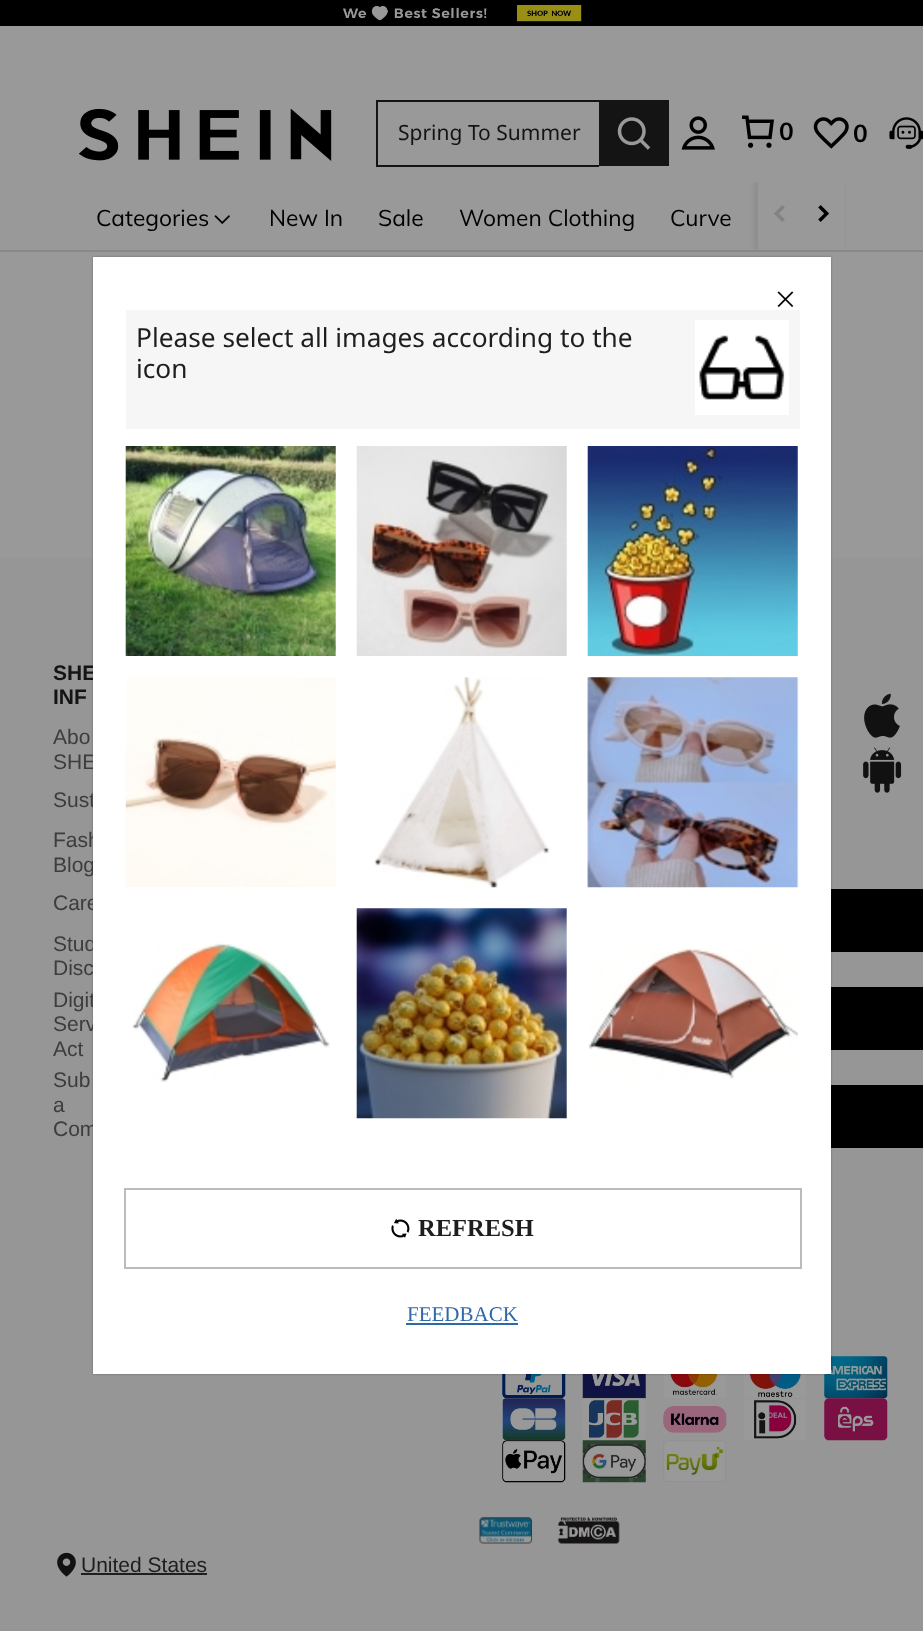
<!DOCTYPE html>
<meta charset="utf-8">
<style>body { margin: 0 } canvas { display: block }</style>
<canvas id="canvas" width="923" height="1631"></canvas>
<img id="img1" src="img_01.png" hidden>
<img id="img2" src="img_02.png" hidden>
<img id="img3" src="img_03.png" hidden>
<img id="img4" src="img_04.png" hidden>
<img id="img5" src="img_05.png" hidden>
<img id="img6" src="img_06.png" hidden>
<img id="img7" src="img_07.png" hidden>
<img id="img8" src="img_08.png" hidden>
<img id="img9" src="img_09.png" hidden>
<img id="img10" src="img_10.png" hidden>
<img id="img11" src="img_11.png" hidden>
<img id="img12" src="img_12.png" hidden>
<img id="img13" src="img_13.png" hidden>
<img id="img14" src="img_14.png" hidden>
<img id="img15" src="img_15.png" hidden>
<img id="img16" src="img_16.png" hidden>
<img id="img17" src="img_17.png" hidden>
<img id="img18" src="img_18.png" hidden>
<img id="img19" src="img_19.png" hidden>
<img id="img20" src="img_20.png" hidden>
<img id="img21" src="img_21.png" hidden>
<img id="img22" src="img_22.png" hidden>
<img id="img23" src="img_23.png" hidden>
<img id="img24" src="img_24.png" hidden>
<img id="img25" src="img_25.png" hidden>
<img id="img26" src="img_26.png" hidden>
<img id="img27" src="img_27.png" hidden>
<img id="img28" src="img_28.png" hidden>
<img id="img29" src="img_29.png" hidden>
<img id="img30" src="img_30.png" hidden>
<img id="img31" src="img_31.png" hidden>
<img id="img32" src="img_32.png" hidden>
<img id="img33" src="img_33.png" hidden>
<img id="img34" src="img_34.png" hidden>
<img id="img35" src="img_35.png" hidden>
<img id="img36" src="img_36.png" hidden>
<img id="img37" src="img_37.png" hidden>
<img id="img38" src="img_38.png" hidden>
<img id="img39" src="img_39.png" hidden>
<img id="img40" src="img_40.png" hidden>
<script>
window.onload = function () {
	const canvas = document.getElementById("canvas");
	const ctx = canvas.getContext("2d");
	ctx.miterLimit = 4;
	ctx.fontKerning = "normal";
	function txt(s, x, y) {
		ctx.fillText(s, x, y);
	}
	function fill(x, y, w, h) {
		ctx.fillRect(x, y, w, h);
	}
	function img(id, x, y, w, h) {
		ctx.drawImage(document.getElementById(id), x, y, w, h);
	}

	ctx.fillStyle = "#999999";
	fill(0, 0, 923, 1631);
	img("img1", 0, 0, 923, 26);
	img("img2", 79, 109, 253, 52);
	ctx.fillStyle = "#141414";
	fill(376, 100, 223, 2);
	fill(376, 165, 223, 2);
	fill(376, 100, 2, 66);
	fill(599, 100, 70, 66);
	img("img3", 617, 117, 34, 33);
	img("img4", 681, 116, 34, 34);
	img("img5", 742, 115, 32, 33);
	img("img6", 813, 117, 36, 32);
	img("img7", 889, 117, 34, 32);
	ctx.fillStyle = "#898989";
	fill(0, 250, 923, 2);
	img("img8", 214, 215, 16, 9);
	ctx.save();
	ctx.beginPath();
	ctx.rect(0, 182, 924, 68);
	ctx.clip();
	ctx.fillStyle = "rgba(0, 0, 0, 0.08)";
	ctx.filter = "blur(2.5px)";
	ctx.beginPath();
	ctx.rect(754, 182, 88, 68);
	ctx.fill();
	ctx.filter = "none";
	ctx.restore();
	ctx.fillStyle = "#999999";
	fill(758, 182, 86, 68);
	img("img9", 774, 205, 11, 17);
	img("img10", 818, 205, 11, 17);
	ctx.fillStyle = "#969696";
	fill(0, 558, 923, 1073);
	img("img11", 864, 693, 36, 45);
	img("img12", 863, 747, 39, 46);
	ctx.fillStyle = "#000000";
	fill(831, 889, 92, 63);
	fill(831, 987, 92, 63);
	fill(831, 1085, 92, 63);
	img("img13", 502, 1374, 64, 25);
	img("img14", 582, 1374, 64, 25);
	img("img15", 664, 1374, 62, 24);
	img("img16", 744, 1374, 62, 24);
	img("img17", 824, 1356, 64, 43);
	img("img18", 502, 1398, 64, 43);
	img("img19", 583, 1398, 63, 42);
	img("img20", 663, 1406, 64, 27);
	img("img21", 744, 1399, 62, 41);
	img("img22", 824, 1398, 64, 43);
	img("img23", 502, 1440, 64, 43);
	img("img24", 582, 1440, 64, 43);
	img("img25", 663, 1440, 63, 42);
	img("img26", 479, 1517, 53, 27);
	img("img27", 558, 1517, 62, 27);
	img("img28", 57, 1552, 19, 25);
	ctx.fillStyle = "#1E1E1E";
	fill(81, 1573, 126, 2);
	ctx.fillStyle = "rgba(0, 0, 0, 0.3)";
	ctx.filter = "blur(1px)";
	ctx.beginPath();
	ctx.rect(93, 257, 738, 1117);
	ctx.fill();
	ctx.filter = "none";
	ctx.font = "21px Noto Sans";
	ctx.fillStyle = "#141414";
	txt("Spring To Summer", 398, 140);
	ctx.font = "bold 24.5px Muli";
	ctx.fillStyle = "#000000";
	txt("0", 779, 140);
	txt("0", 853, 142);
	ctx.font = "22.75px Muli";
	txt("Categories", 96, 226);
	txt("New In", 269, 226);
	txt("Sale", 378, 226);
	txt("Women Clothing", 459, 226);
	txt("Curve", 670, 226);
	ctx.font = "bold 21px Liberation Sans";
	ctx.fillStyle = "#141414";
	txt("SHE", 53, 680);
	txt("INF", 53, 704);
	ctx.font = "21px Liberation Sans";
	ctx.fillStyle = "#3D3D3D";
	txt("Abo", 53, 744);
	txt("SHE", 53, 769);
	txt("Sust", 53, 807);
	txt("Fash", 53, 847);
	txt("Blog", 53, 872);
	txt("Care", 53, 910);
	txt("Stud", 53, 951);
	txt("Disc", 53, 975);
	txt("Digit", 53, 1007);
	txt("Serv", 53, 1031);
	txt("Act", 53, 1056);
	txt("Sub", 53, 1087);
	txt("a", 53, 1112);
	txt("Com", 53, 1136);
	ctx.fillStyle = "#1E1E1E";
	txt("United States", 81, 1572);
	ctx.fillStyle = "#FFFFFF";
	fill(93, 257, 738, 1117);
	img("img29", 777, 291, 17, 17);
	ctx.fillStyle = "#F6F6F6";
	fill(126, 310, 674, 119);
	ctx.font = "26.25px Noto Sans";
	ctx.fillStyle = "#1E1E1E";
	txt("Please select all images according to the", 136, 347);
	txt("icon", 136, 378);
	ctx.fillStyle = "#FFFFFF";
	fill(695, 320, 94, 95);
	img("img30", 699, 335, 86, 65);
	img("img31", 125, 446, 211, 210);
	img("img32", 356, 446, 211, 210);
	img("img33", 587, 446, 211, 210);
	img("img34", 125, 677, 211, 210);
	img("img35", 374, 677, 176, 211);
	img("img36", 587, 677, 212, 211);
	img("img37", 132, 942, 198, 141);
	img("img38", 356, 908, 211, 211);
	img("img39", 589, 948, 209, 131);
	ctx.strokeStyle = "#BBBBBB";
	ctx.lineWidth = 2;
	ctx.strokeRect(125, 1189, 676, 79);
	img("img40", 391, 1218, 19, 20);
	ctx.font = "bold 24.5px Liberation Serif";
	ctx.fillStyle = "#1E1E1E";
	txt("REFRESH", 418, 1236);
	ctx.font = "21px Liberation Serif";
	ctx.fillStyle = "#2D68A8";
	txt("FEEDBACK", 407, 1321);
	fill(406, 1323, 112, 2);
};
</script>
